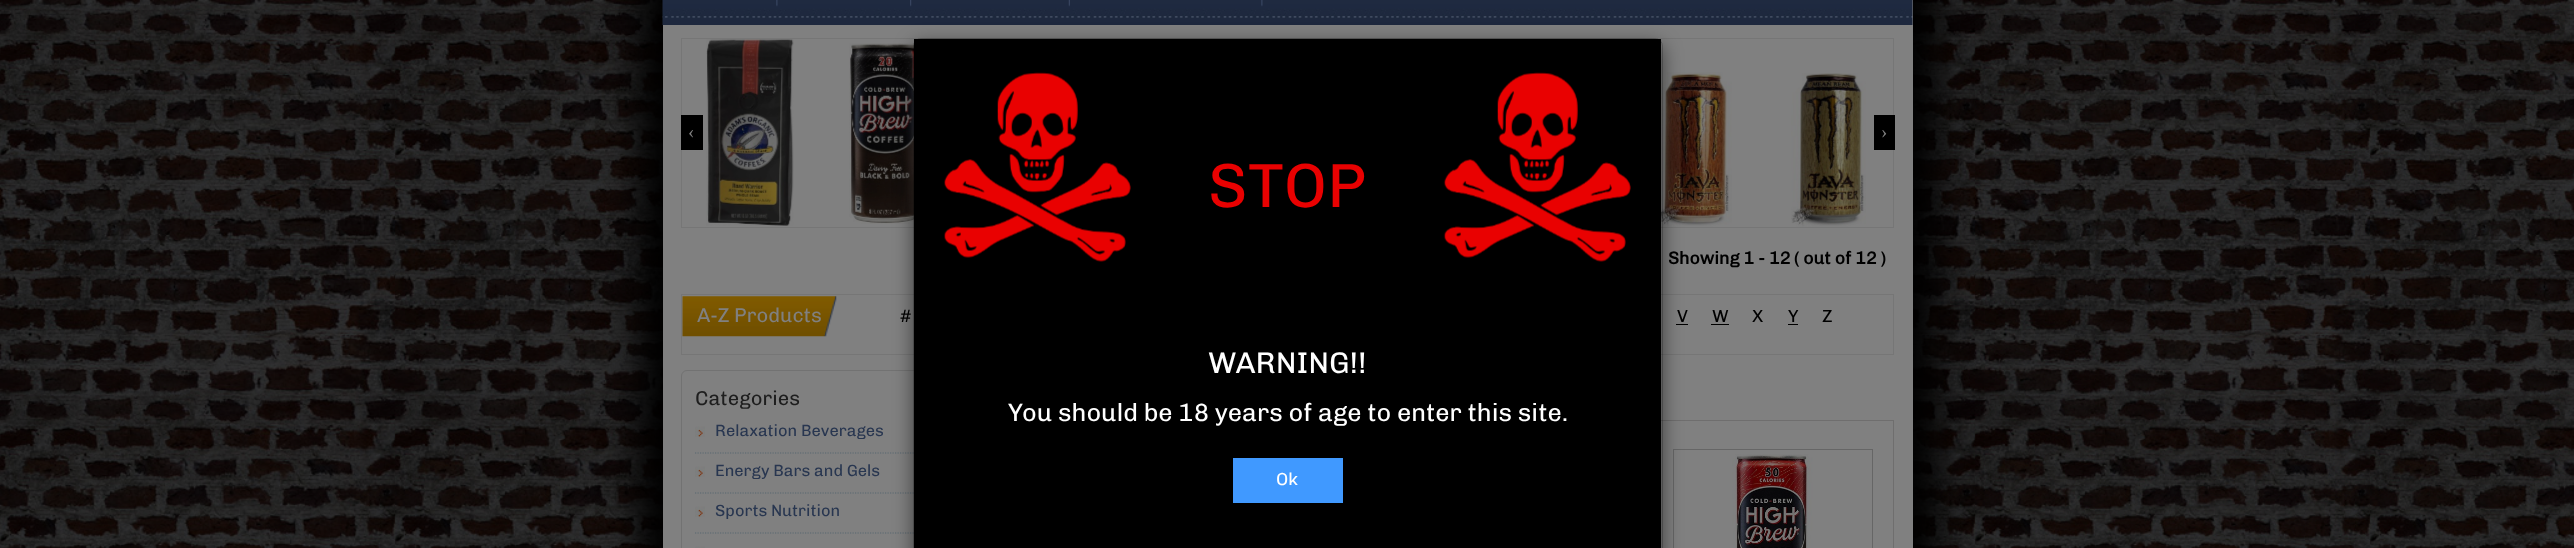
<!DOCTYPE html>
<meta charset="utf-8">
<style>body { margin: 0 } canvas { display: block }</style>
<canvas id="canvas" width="2574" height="548"></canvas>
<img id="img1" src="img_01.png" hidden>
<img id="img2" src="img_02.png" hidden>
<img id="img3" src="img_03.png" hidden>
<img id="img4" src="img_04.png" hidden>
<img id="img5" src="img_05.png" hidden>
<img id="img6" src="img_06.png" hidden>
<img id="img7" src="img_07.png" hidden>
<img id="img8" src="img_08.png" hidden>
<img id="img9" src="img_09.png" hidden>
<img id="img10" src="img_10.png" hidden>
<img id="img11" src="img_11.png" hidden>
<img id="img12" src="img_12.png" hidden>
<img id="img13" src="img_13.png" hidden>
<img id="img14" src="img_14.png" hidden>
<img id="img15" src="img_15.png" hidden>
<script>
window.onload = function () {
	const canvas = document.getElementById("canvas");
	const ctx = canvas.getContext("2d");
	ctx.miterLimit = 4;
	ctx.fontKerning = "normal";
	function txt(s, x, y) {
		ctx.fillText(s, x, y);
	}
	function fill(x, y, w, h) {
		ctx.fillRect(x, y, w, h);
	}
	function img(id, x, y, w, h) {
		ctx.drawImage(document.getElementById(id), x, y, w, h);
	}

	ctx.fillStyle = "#FFFFFF";
	fill(0, 0, 2574, 548);
	img("img1", 0, 0, 2574, 548);
	ctx.fillStyle = "#000000";
	ctx.filter = "blur(19px)";
	ctx.beginPath();
	ctx.rect(638, -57, 1300, 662);
	ctx.fill();
	ctx.filter = "none";
	ctx.fillStyle = "#808080";
	fill(663, 0, 1250, 548);
	img("img2", 662, 0, 1251, 25);
	img("img3", 776, 0, 2, 7);
	img("img4", 910, 0, 2, 7);
	img("img5", 1068, 0, 2, 7);
	img("img3", 1261, 0, 2, 7);
	ctx.strokeStyle = "#767676";
	ctx.strokeRect(681.5, 38.5, 1212, 189);
	ctx.fillStyle = "#000000";
	fill(681, 115, 22, 35);
	img("img6", 706, 39, 88, 187);
	img("img7", 849, 43, 65, 181);
	img("img8", 1661, 72, 71, 155);
	img("img9", 1791, 73, 75, 154);
	fill(1874, 115, 21, 35);
	ctx.strokeRect(681.5, 294.5, 1212, 60);
	img("img10", 682, 296, 155, 41);
	fill(1676, 324, 12, 1);
	fill(1711, 324, 18, 1);
	fill(1788, 324, 10, 1);
	ctx.beginPath();
	ctx.roundRect(681.5, 370.5, 274, 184, 5.5);
	ctx.strokeStyle = "#727272";
	ctx.stroke();
	img("img11", 695, 426, 10, 11);
	ctx.beginPath();
	ctx.moveTo(695, 453);
	ctx.lineTo(942.5, 453);
	ctx.strokeStyle = "#596771";
	ctx.lineWidth = 1.2;
	ctx.setLineDash([1.25, 1.25]);
	ctx.stroke();
	img("img11", 695, 466, 10, 11);
	ctx.beginPath();
	ctx.moveTo(695, 493);
	ctx.lineTo(942.5, 493);
	ctx.stroke();
	img("img11", 695, 506, 10, 11);
	ctx.beginPath();
	ctx.moveTo(695, 533);
	ctx.lineTo(942.5, 533);
	ctx.stroke();
	img("img12", 695, 546, 10, 2);
	ctx.strokeStyle = "#6F6E6E";
	ctx.lineWidth = 1;
	ctx.setLineDash([]);
	ctx.strokeRect(994.5, 420.5, 899, 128);
	ctx.strokeStyle = "#666666";
	ctx.strokeRect(1673.5, 449.5, 199, 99);
	img("img13", 1732, 454, 81, 94);
	ctx.fillStyle = "rgba(0, 0, 0, 0.5)";
	ctx.filter = "blur(9.5px)";
	ctx.beginPath();
	ctx.roundRect(913, 44, 750, 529, 8);
	ctx.fill();
	ctx.filter = "none";
	ctx.beginPath();
	ctx.roundRect(913.5, 38.5, 749, 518, 7.5);
	ctx.strokeStyle = "rgba(0, 0, 0, 0.2)";
	ctx.stroke();
	ctx.fillStyle = "#000000";
	fill(914, 39, 747, 509);
	img("img14", 944, 72, 187, 190);
	img("img15", 1443, 72, 188, 190);
	ctx.fillStyle = "#4099FF";
	fill(1233, 458, 110, 45);
	ctx.font = "19px Liberation Serif";
	ctx.fillStyle = "#808080";
	txt("‹", 688, 138);
	txt("›", 1881, 138);
	ctx.font = "bold 17.5px Chivo";
	ctx.fillStyle = "#000000";
	txt("Showing 1 - 12", 1668, 264);
	txt("( out of 12 )", 1794, 264);
	ctx.font = "20px Chivo";
	ctx.fillStyle = "#808080";
	txt("A-Z Products", 697, 322);
	ctx.font = "17.5px Chivo";
	ctx.fillStyle = "#000000";
	txt("#", 900, 322);
	txt("V", 1677, 322);
	txt("W", 1712, 322);
	txt("X", 1752, 322);
	txt("Y", 1788, 322);
	txt("Z", 1822, 322);
	ctx.font = "20px Chivo";
	ctx.fillStyle = "#1E1E1E";
	txt("Categories", 695, 405);
	ctx.font = "16.25px Chivo";
	ctx.fillStyle = "#283650";
	txt("Relaxation Beverages", 715, 436);
	txt("Energy Bars and Gels", 715, 476);
	txt("Sports Nutrition", 715, 516);
	ctx.font = "62.5px Chivo";
	ctx.fillStyle = "#E90101";
	txt("STOP", 1208, 207);
	ctx.font = "30px Chivo";
	ctx.fillStyle = "#FFFFFF";
	txt("WARNING!!", 1208, 373);
	ctx.font = "25px Chivo";
	txt("You should be 18 years of age to enter this site.", 1008, 421);
	ctx.font = "17.5px Chivo";
	txt("Ok", 1276, 485);
};
</script>
